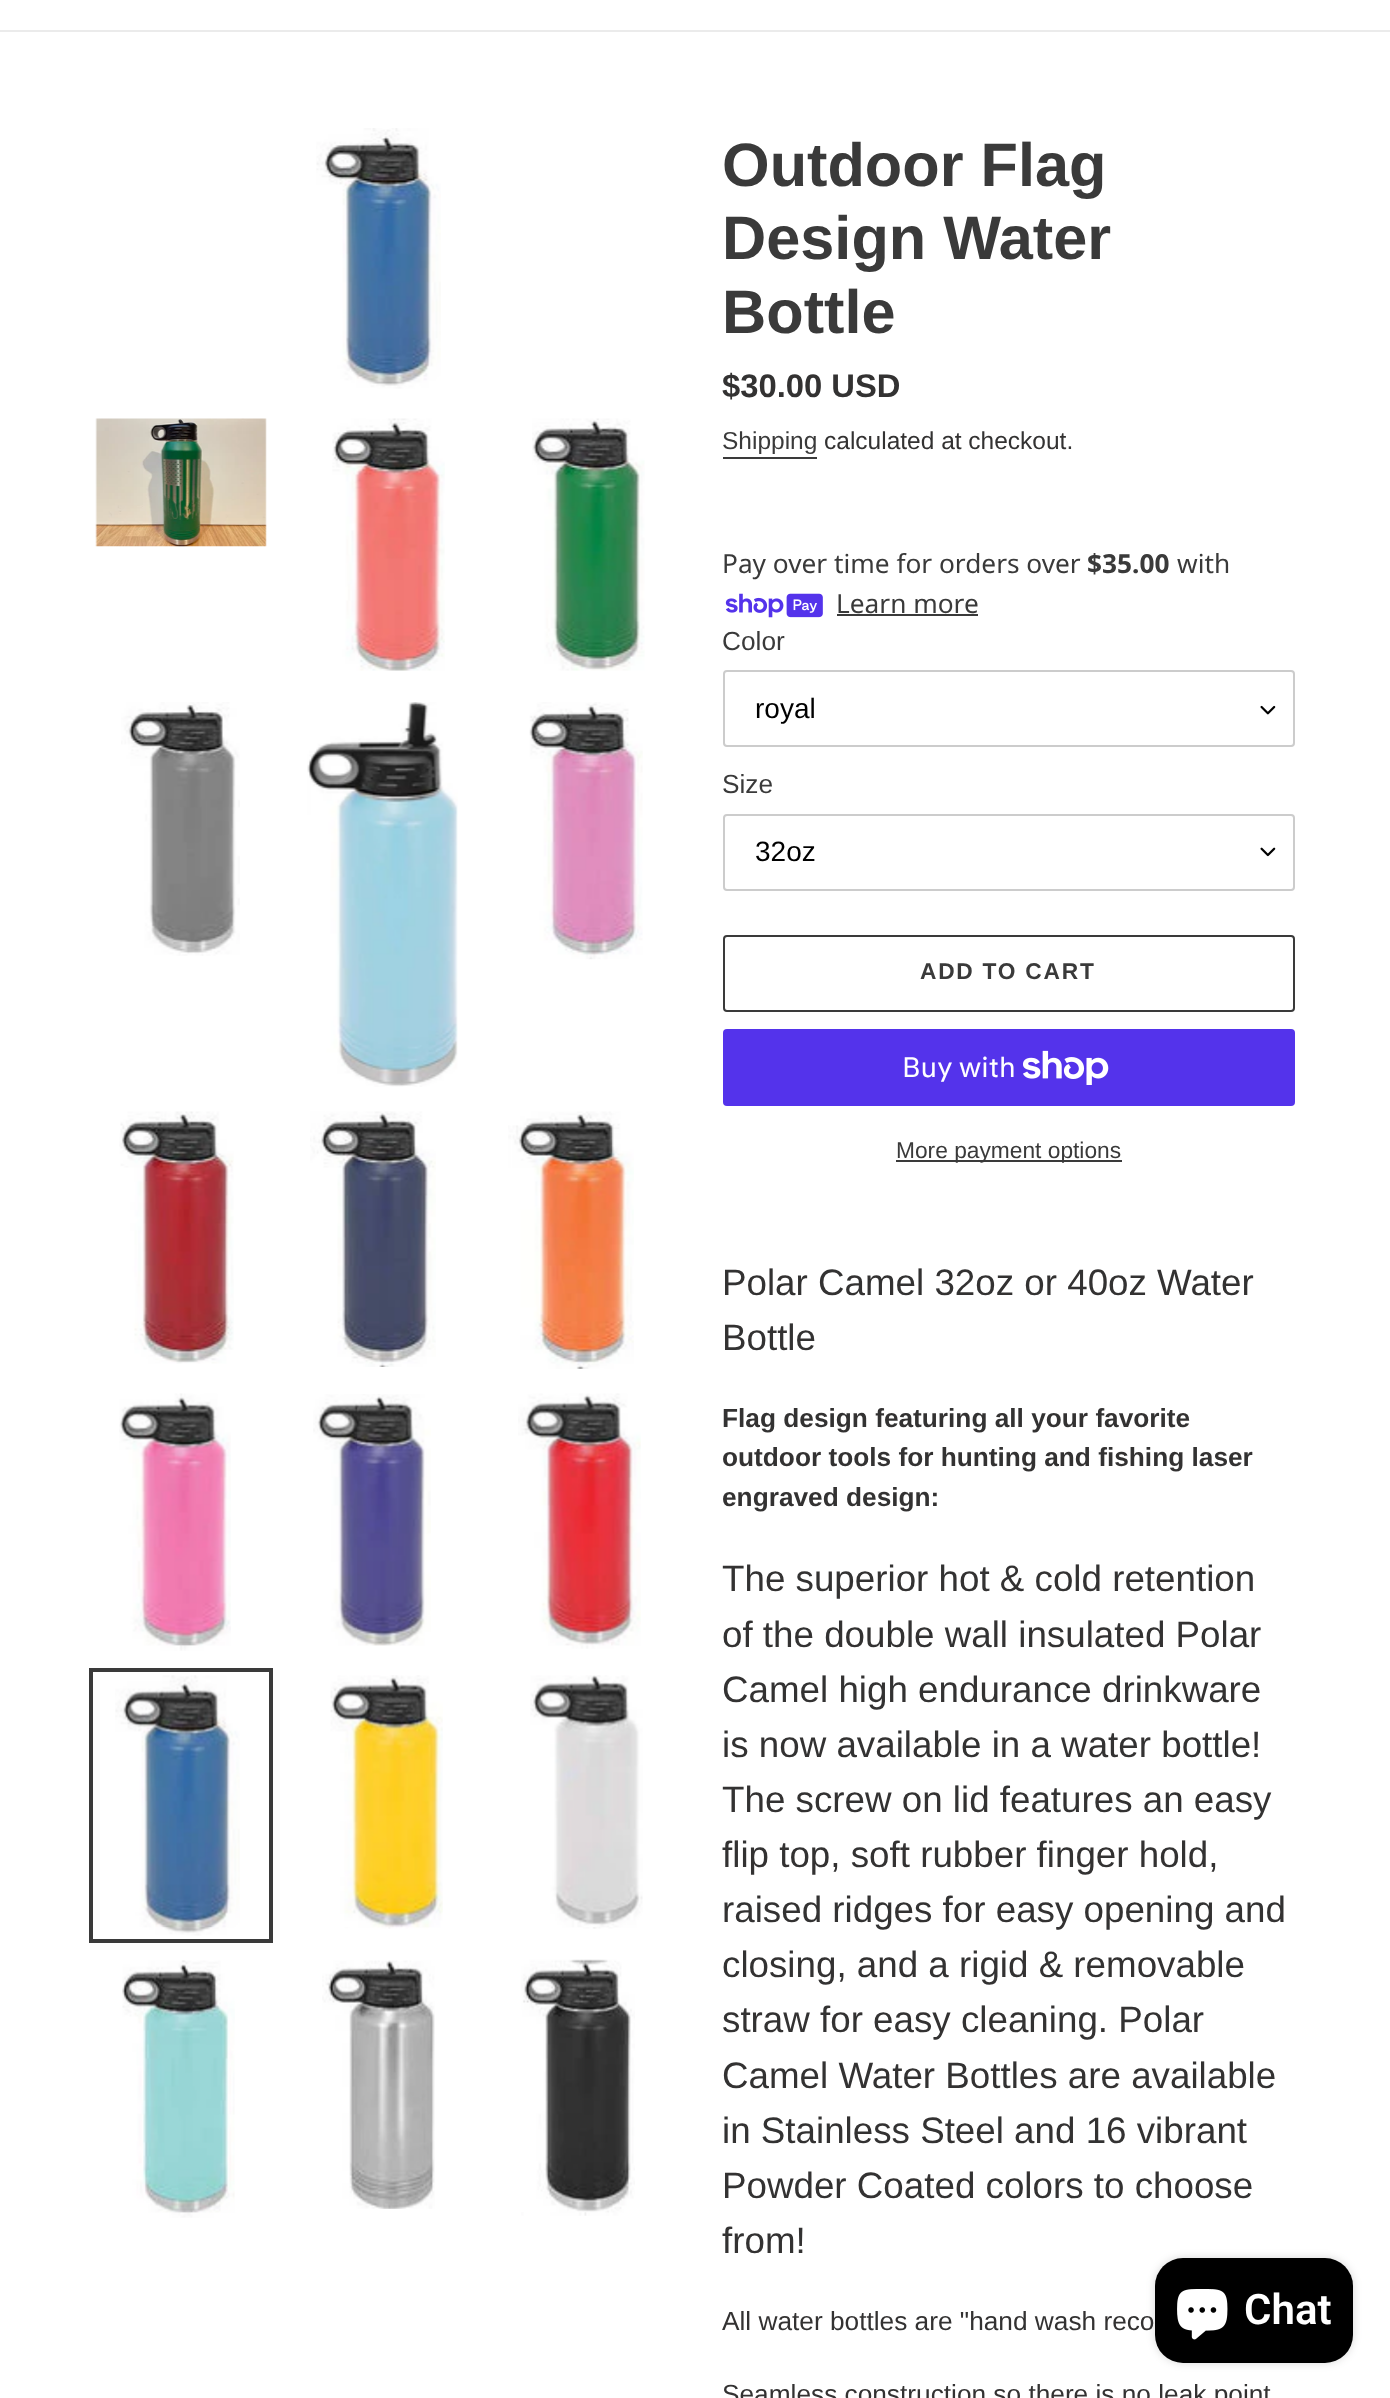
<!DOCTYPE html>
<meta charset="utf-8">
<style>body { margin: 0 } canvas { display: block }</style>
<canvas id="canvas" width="1390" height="2398"></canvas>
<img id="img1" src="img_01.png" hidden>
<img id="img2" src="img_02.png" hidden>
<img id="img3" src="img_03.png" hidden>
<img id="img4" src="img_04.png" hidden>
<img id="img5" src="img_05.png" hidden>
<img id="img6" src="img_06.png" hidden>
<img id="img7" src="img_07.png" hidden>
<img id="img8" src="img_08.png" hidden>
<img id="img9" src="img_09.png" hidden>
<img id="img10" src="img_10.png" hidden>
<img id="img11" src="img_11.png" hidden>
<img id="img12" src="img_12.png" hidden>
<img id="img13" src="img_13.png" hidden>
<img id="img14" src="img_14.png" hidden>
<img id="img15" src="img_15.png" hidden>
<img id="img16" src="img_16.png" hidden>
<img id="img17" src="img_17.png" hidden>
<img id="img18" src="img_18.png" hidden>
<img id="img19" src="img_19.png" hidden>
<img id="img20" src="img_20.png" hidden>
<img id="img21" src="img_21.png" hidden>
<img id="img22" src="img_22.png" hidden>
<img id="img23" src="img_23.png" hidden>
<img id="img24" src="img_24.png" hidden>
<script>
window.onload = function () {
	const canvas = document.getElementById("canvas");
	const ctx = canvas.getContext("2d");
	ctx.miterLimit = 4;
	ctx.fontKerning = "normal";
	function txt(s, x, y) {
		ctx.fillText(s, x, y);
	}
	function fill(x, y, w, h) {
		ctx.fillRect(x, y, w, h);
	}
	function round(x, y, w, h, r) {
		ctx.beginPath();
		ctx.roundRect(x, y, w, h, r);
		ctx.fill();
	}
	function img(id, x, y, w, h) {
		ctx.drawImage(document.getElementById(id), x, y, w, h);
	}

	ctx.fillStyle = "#FFFFFF";
	fill(0, 0, 1390, 2398);
	ctx.fillStyle = "#EBEBEB";
	fill(0, 30, 1390, 2);
	img("img1", 316, 128, 125, 261);
	img("img2", 95, 418, 172, 129);
	img("img3", 332, 418, 113, 253);
	img("img4", 532, 418, 113, 253);
	img("img5", 121, 702, 119, 254);
	img("img6", 307, 702, 151, 385);
	img("img7", 529, 702, 114, 258);
	img("img8", 119, 1111, 115, 253);
	img("img9", 310, 1111, 126, 256);
	img("img10", 508, 1111, 126, 258);
	img("img11", 119, 1393, 112, 258);
	img("img12", 313, 1394, 118, 252);
	img("img13", 518, 1393, 123, 256);
	ctx.strokeStyle = "#3A3A3A";
	ctx.lineWidth = 4;
	ctx.strokeRect(91, 1670, 180, 271);
	img("img14", 115, 1675, 125, 261);
	img("img15", 330, 1675, 113, 254);
	img("img16", 530, 1675, 113, 254);
	img("img17", 122, 1960, 113, 258);
	img("img18", 322, 1960, 113, 249);
	img("img19", 521, 1959, 114, 257);
	ctx.fillStyle = "#3A3A3A";
	fill(723, 457, 94, 2);
	img("img20", 725, 593, 98, 25);
	fill(837, 614, 141, 2);
	img("img21", 1260, 705, 16, 10);
	ctx.beginPath();
	ctx.roundRect(724, 671, 570, 75, 3);
	ctx.strokeStyle = "#CCCCCC";
	ctx.lineWidth = 2;
	ctx.stroke();
	img("img22", 1260, 847, 16, 10);
	ctx.beginPath();
	ctx.roundRect(724, 815, 570, 75, 3);
	ctx.stroke();
	ctx.beginPath();
	ctx.roundRect(724, 936, 570, 75, 3);
	ctx.strokeStyle = "#3A3A3A";
	ctx.stroke();
	ctx.fillStyle = "#5433EB";
	round(723, 1029, 572, 77, 4);
	img("img23", 1023, 1050, 86, 35);
	ctx.fillStyle = "#3A3A3A";
	fill(896, 1160, 226, 2);
	ctx.fillStyle = "rgba(0, 0, 0, 0.15)";
	ctx.filter = "blur(4.5px)";
	ctx.beginPath();
	ctx.roundRect(1155, 2258, 198, 105, 28);
	ctx.fill();
	ctx.filter = "none";
	ctx.fillStyle = "#000000";
	round(1155, 2258, 198, 105, 28);
	img("img24", 1177, 2289, 51, 51);
	ctx.font = "bold 61.25px Liberation Sans";
	ctx.fillStyle = "#3A3A3A";
	txt("Outdoor Flag", 722, 186);
	txt("Design Water", 722, 259);
	txt("Bottle", 722, 333);
	ctx.font = "bold 32.75px Liberation Sans";
	ctx.fillStyle = "#333232";
	txt("$30.00 USD", 722, 397);
	ctx.font = "24.5px Liberation Sans";
	ctx.fillStyle = "#3A3A3A";
	txt("Shipping", 722, 449);
	ctx.fillStyle = "#333232";
	txt("calculated at checkout.", 824, 449);
	ctx.font = "26.25px Noto Sans";
	ctx.fillStyle = "#3A3A3A";
	txt("Pay over time for orders over", 722, 573);
	ctx.font = "bold 26.25px Noto Sans";
	txt("$35.00", 1087, 573);
	ctx.font = "26.25px Noto Sans";
	txt("with", 1177, 573);
	txt("Learn more", 836, 613);
	ctx.font = "26.25px Liberation Sans";
	txt("Color", 722, 650);
	ctx.font = "28px Liberation Sans";
	ctx.fillStyle = "#000000";
	txt("royal", 755, 718);
	ctx.font = "26.25px Liberation Sans";
	ctx.fillStyle = "#3A3A3A";
	txt("Size", 722, 793);
	ctx.font = "28px Liberation Sans";
	ctx.fillStyle = "#000000";
	txt("32oz", 755, 861);
	ctx.letterSpacing = "1.75px";
	ctx.font = "bold 22.75px Liberation Sans";
	ctx.fillStyle = "#3A3A3A";
	txt("ADD TO CART", 920, 979);
	ctx.letterSpacing = "0px";
	ctx.font = "28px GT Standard";
	ctx.fillStyle = "#FFFFFF";
	txt("Buy with", 902, 1077);
	ctx.font = "22.75px Liberation Sans";
	ctx.fillStyle = "#3A3A3A";
	txt("More payment options", 896, 1158);
	ctx.font = "36.75px Liberation Sans";
	ctx.fillStyle = "#333232";
	txt("Polar Camel 32oz or 40oz Water", 722, 1295);
	txt("Bottle", 722, 1350);
	ctx.font = "bold 26.25px Liberation Sans";
	txt("Flag design featuring all your favorite", 722, 1427);
	txt("outdoor tools for hunting and fishing laser", 722, 1466);
	txt("engraved design:", 722, 1506);
	ctx.font = "36.75px Liberation Sans";
	txt("The superior hot & cold retention", 722, 1591);
	txt("of the double wall insulated Polar", 722, 1647);
	txt("Camel high endurance drinkware", 722, 1702);
	txt("is now available in a water bottle!", 722, 1757);
	txt("The screw on lid features an easy", 722, 1812);
	txt("flip top, soft rubber finger hold,", 722, 1867);
	txt("raised ridges for easy opening and", 722, 1922);
	txt("closing, and a rigid & removable", 722, 1977);
	txt("straw for easy cleaning. Polar", 722, 2032);
	txt("Camel Water Bottles are available", 722, 2088);
	txt("in Stainless Steel and 16 vibrant", 722, 2143);
	txt("Powder Coated colors to choose", 722, 2198);
	txt("from!", 722, 2253);
	ctx.font = "26.25px Liberation Sans";
	txt("All water bottles are \"hand wash reco", 722, 2330);
	txt("Seamless construction so there is no leak point", 722, 2403);
	ctx.font = "600 42px Roboto";
	ctx.fillStyle = "#FFFFFF";
	txt("Chat", 1244, 2324);
};
</script>
